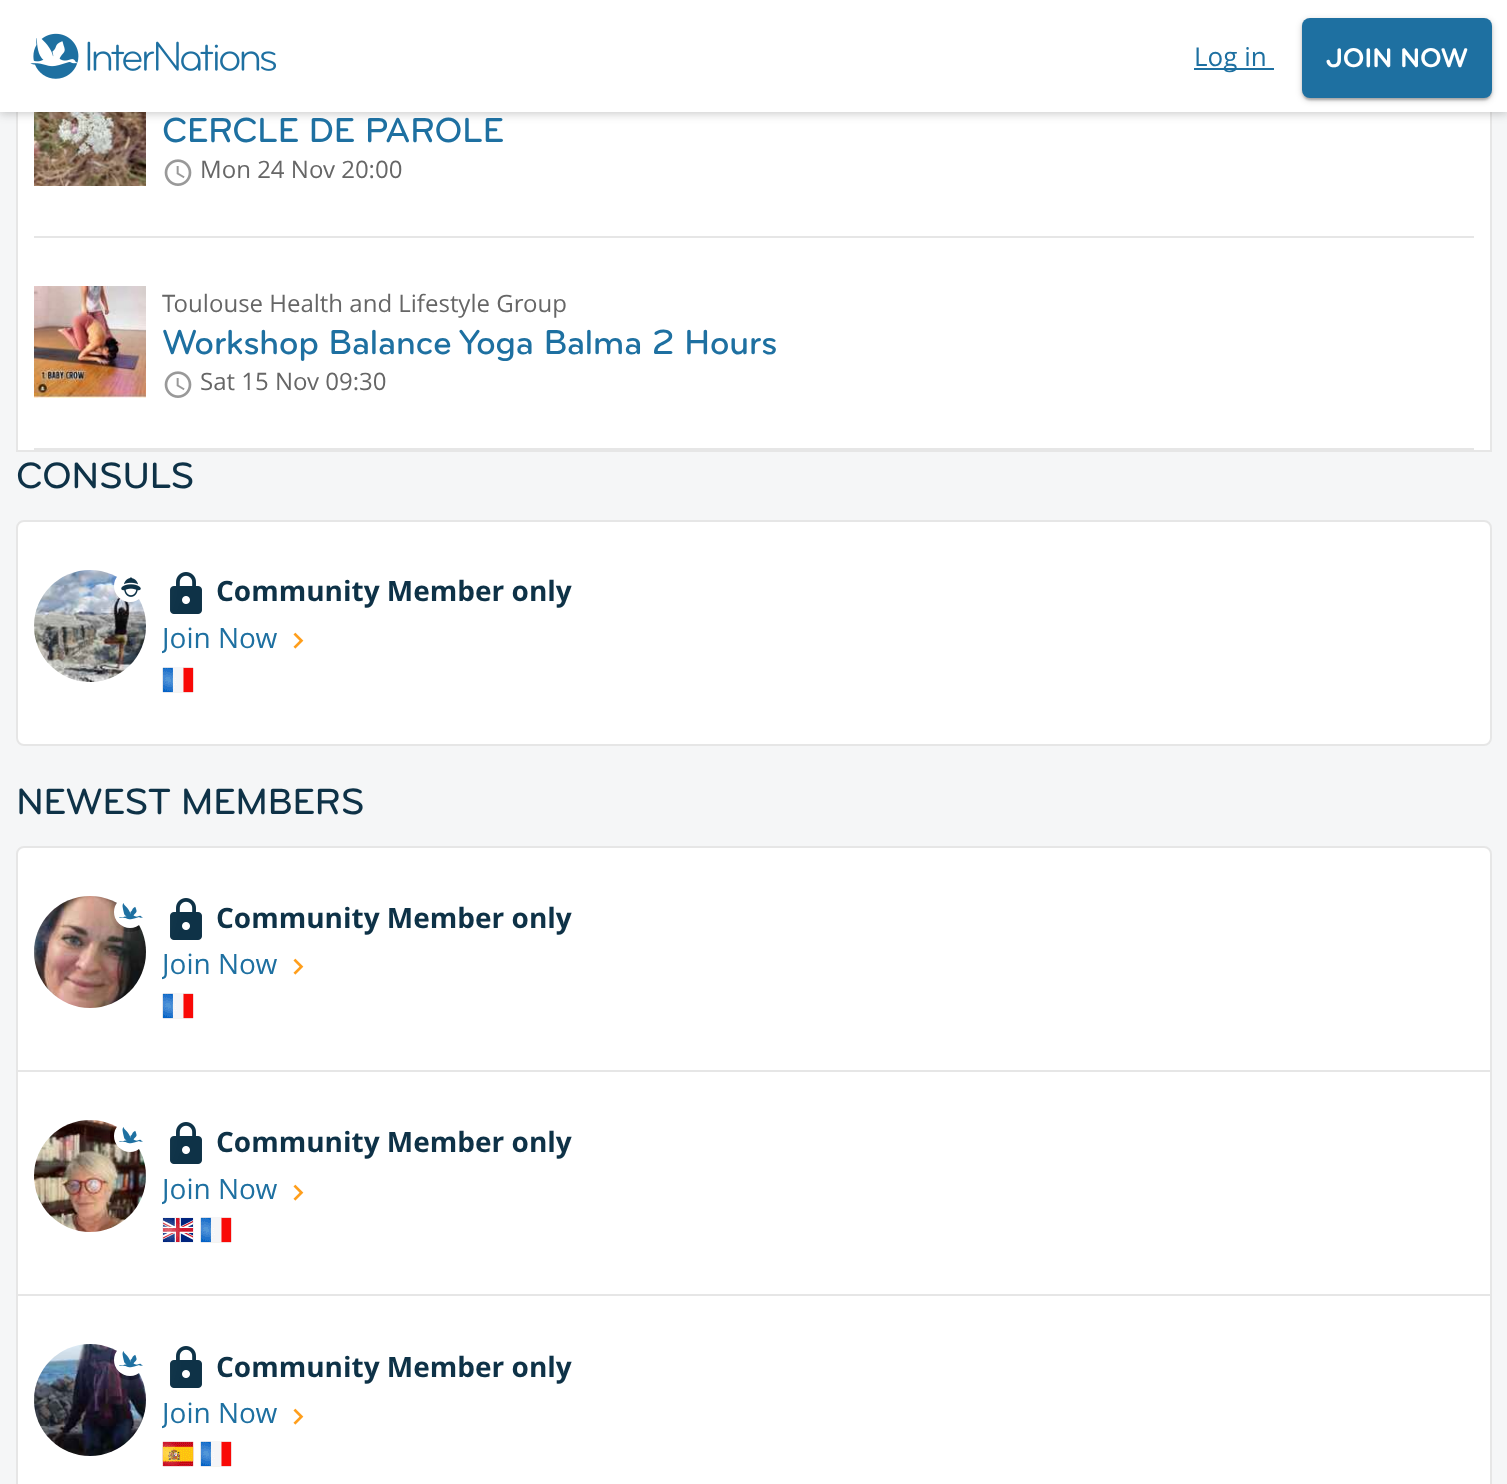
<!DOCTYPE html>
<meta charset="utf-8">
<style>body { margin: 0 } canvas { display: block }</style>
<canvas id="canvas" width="1507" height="1484"></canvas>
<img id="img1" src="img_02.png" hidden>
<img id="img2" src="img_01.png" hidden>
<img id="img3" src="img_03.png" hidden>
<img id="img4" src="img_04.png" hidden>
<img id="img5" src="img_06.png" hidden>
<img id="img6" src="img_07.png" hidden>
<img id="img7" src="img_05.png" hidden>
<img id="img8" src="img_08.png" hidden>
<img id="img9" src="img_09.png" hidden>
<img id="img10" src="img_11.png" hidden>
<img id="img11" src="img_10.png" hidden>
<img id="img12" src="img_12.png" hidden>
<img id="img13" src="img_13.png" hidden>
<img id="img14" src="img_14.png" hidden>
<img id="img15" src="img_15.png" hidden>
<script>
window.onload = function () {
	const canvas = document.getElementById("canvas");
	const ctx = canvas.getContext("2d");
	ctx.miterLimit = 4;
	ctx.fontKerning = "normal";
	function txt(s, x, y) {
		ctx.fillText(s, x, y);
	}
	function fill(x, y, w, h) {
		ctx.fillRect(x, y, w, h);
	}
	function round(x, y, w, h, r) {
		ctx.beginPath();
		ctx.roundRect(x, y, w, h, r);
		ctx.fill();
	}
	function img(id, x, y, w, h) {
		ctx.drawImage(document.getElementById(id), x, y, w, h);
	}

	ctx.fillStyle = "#F5F6F7";
	fill(0, 0, 1507, 1484);
	ctx.fillStyle = "#FFFFFF";
	fill(18, 112, 1472, 338);
	ctx.strokeStyle = "#E6E6E6";
	ctx.lineWidth = 2;
	ctx.strokeRect(17, -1, 1474, 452);
	img("img1", 34, 112, 112, 74);
	ctx.fillStyle = "rgba(51, 51, 51, 0.25)";
	ctx.filter = "blur(5px)";
	ctx.beginPath();
	ctx.rect(0, 2, 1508, 112);
	ctx.fill();
	ctx.filter = "none";
	ctx.fillStyle = "#FFFFFF";
	fill(0, 0, 1507, 112);
	img("img2", 30, 33, 246, 46);
	ctx.fillStyle = "#1E70A1";
	fill(1194, 68, 80, 2);
	ctx.fillStyle = "rgba(0, 0, 0, 0.2)";
	ctx.filter = "blur(3px)";
	ctx.beginPath();
	ctx.roundRect(1302, 20, 190, 80, 8);
	ctx.fill();
	ctx.filter = "none";
	ctx.fillStyle = "rgba(0, 0, 0, 0.12)";
	ctx.filter = "blur(1px)";
	ctx.beginPath();
	ctx.roundRect(1304, 24, 186, 76, 6);
	ctx.fill();
	ctx.filter = "none";
	ctx.fillStyle = "rgba(0, 0, 0, 0.14)";
	ctx.filter = "blur(1px)";
	ctx.beginPath();
	ctx.roundRect(1302, 20, 190, 80, 8);
	ctx.fill();
	ctx.filter = "none";
	ctx.fillStyle = "#1E70A1";
	round(1302, 18, 190, 80, 8);
	ctx.fillStyle = "#E6E6E6";
	fill(34, 236, 1440, 2);
	img("img3", 164, 159, 28, 27);
	fill(34, 448, 1440, 2);
	img("img4", 34, 286, 112, 112);
	img("img3", 164, 371, 28, 27);
	ctx.fillStyle = "#FFFFFF";
	ctx.beginPath();
	ctx.roundRect(17, 521, 1474, 224, 7);
	ctx.fill();
	ctx.stroke();
	img("img5", 34, 570, 112, 112);
	img("img6", 170, 572, 32, 42);
	ctx.save();
	ctx.beginPath();
	ctx.moveTo(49, 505);
	ctx.lineTo(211, 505);
	ctx.lineTo(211, 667);
	ctx.lineTo(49, 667);
	ctx.closePath();
	ctx.moveTo(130, 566);
	ctx.bezierCurveTo(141, 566, 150, 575, 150, 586);
	ctx.bezierCurveTo(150, 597, 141, 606, 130, 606);
	ctx.bezierCurveTo(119, 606, 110, 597, 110, 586);
	ctx.bezierCurveTo(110, 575, 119, 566, 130, 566);
	ctx.closePath();
	ctx.clip("evenodd");
	ctx.fillStyle = "rgba(255, 255, 255, 0.25)";
	ctx.filter = "blur(20px)";
	ctx.beginPath();
	ctx.roundRect(110, 566, 40, 40, 20);
	ctx.fill();
	ctx.filter = "none";
	ctx.restore();
	ctx.beginPath();
	ctx.arc(130, 586, 16, 0, Math.PI * 2);
	ctx.fill();
	img("img7", 121, 577, 20, 20);
	img("img8", 293, 632, 11, 17);
	img("img9", 162, 667, 32, 26);
	ctx.beginPath();
	ctx.roundRect(17, 847, 1474, 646, 7);
	ctx.fill();
	ctx.stroke();
	img("img10", 34, 896, 112, 112);
	img("img6", 170, 898, 32, 42);
	ctx.save();
	ctx.beginPath();
	ctx.moveTo(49, 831);
	ctx.lineTo(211, 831);
	ctx.lineTo(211, 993);
	ctx.lineTo(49, 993);
	ctx.closePath();
	ctx.moveTo(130, 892);
	ctx.bezierCurveTo(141, 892, 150, 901, 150, 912);
	ctx.bezierCurveTo(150, 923, 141, 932, 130, 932);
	ctx.bezierCurveTo(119, 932, 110, 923, 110, 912);
	ctx.bezierCurveTo(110, 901, 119, 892, 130, 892);
	ctx.closePath();
	ctx.clip("evenodd");
	ctx.fillStyle = "rgba(255, 255, 255, 0.25)";
	ctx.filter = "blur(20px)";
	ctx.beginPath();
	ctx.roundRect(110, 892, 40, 40, 20);
	ctx.fill();
	ctx.filter = "none";
	ctx.restore();
	ctx.beginPath();
	ctx.arc(130, 912, 16, 0, Math.PI * 2);
	ctx.fill();
	img("img11", 119, 903, 24, 17);
	img("img8", 293, 958, 11, 17);
	img("img9", 162, 993, 32, 26);
	ctx.fillStyle = "#E6E6E6";
	fill(18, 1070, 1472, 2);
	img("img12", 34, 1120, 112, 112);
	img("img6", 170, 1122, 32, 42);
	ctx.save();
	ctx.beginPath();
	ctx.moveTo(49, 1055);
	ctx.lineTo(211, 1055);
	ctx.lineTo(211, 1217);
	ctx.lineTo(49, 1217);
	ctx.closePath();
	ctx.moveTo(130, 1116);
	ctx.bezierCurveTo(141, 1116, 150, 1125, 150, 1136);
	ctx.bezierCurveTo(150, 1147, 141, 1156, 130, 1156);
	ctx.bezierCurveTo(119, 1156, 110, 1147, 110, 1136);
	ctx.bezierCurveTo(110, 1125, 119, 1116, 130, 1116);
	ctx.closePath();
	ctx.clip("evenodd");
	ctx.fillStyle = "rgba(255, 255, 255, 0.25)";
	ctx.filter = "blur(20px)";
	ctx.beginPath();
	ctx.roundRect(110, 1116, 40, 40, 20);
	ctx.fill();
	ctx.filter = "none";
	ctx.restore();
	ctx.fillStyle = "#FFFFFF";
	ctx.beginPath();
	ctx.arc(130, 1136, 16, 0, Math.PI * 2);
	ctx.fill();
	img("img11", 119, 1127, 24, 17);
	img("img8", 293, 1184, 11, 17);
	img("img13", 162, 1217, 32, 26);
	img("img9", 200, 1217, 32, 26);
	ctx.fillStyle = "#E6E6E6";
	fill(18, 1294, 1472, 2);
	img("img14", 34, 1344, 112, 112);
	img("img6", 170, 1346, 32, 42);
	ctx.save();
	ctx.beginPath();
	ctx.moveTo(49, 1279);
	ctx.lineTo(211, 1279);
	ctx.lineTo(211, 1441);
	ctx.lineTo(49, 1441);
	ctx.closePath();
	ctx.moveTo(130, 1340);
	ctx.bezierCurveTo(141, 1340, 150, 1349, 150, 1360);
	ctx.bezierCurveTo(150, 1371, 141, 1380, 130, 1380);
	ctx.bezierCurveTo(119, 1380, 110, 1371, 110, 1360);
	ctx.bezierCurveTo(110, 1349, 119, 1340, 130, 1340);
	ctx.closePath();
	ctx.clip("evenodd");
	ctx.fillStyle = "rgba(255, 255, 255, 0.25)";
	ctx.filter = "blur(20px)";
	ctx.beginPath();
	ctx.roundRect(110, 1340, 40, 40, 20);
	ctx.fill();
	ctx.filter = "none";
	ctx.restore();
	ctx.fillStyle = "#FFFFFF";
	ctx.beginPath();
	ctx.arc(130, 1360, 16, 0, Math.PI * 2);
	ctx.fill();
	img("img11", 119, 1351, 24, 17);
	img("img8", 293, 1408, 11, 17);
	img("img15", 162, 1441, 32, 26);
	img("img9", 200, 1441, 32, 26);
	ctx.font = "26px Open Sans";
	ctx.fillStyle = "#1E70A1";
	txt("Log in", 1194, 66);
	ctx.letterSpacing = "-0.25px";
	ctx.font = "bold 28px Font";
	ctx.fillStyle = "#FFFFFF";
	txt("JOIN NOW", 1326, 67);
	ctx.letterSpacing = "-0.55px";
	ctx.font = "500 36px Font";
	ctx.fillStyle = "#1E70A1";
	txt("CERCLE DE PAROLE", 162, 142);
	ctx.letterSpacing = "0px";
	ctx.font = "24px Open Sans";
	ctx.fillStyle = "#666666";
	txt("Mon 24 Nov 20:00", 200, 178);
	txt("Toulouse Health and Lifestyle Group", 162, 312);
	ctx.letterSpacing = "-0.55px";
	ctx.font = "500 36px Font";
	ctx.fillStyle = "#1E70A1";
	txt("Workshop Balance Yoga Balma 2 Hours", 162, 354);
	ctx.letterSpacing = "0px";
	ctx.font = "24px Open Sans";
	ctx.fillStyle = "#666666";
	txt("Sat 15 Nov 09:30", 200, 390);
	ctx.letterSpacing = "-0.6px";
	ctx.font = "500 38px Font";
	ctx.fillStyle = "#0E3247";
	txt("CONSULS", 16, 488);
	ctx.letterSpacing = "0px";
	ctx.font = "bold 28px Open Sans";
	txt("Community Member only", 216, 601);
	ctx.save();
	ctx.beginPath();
	ctx.rect(162, 570, 1312, 126);
	ctx.clip();
	ctx.font = "28px Open Sans";
	ctx.fillStyle = "#1E70A1";
	txt("Join Now", 162, 648);
	ctx.restore();
	ctx.letterSpacing = "-0.6px";
	ctx.font = "500 38px Font";
	txt("NEWEST MEMBERS", 16, 814);
	ctx.letterSpacing = "0px";
	ctx.font = "bold 28px Open Sans";
	txt("Community Member only", 216, 928);
	ctx.save();
	ctx.beginPath();
	ctx.rect(162, 896, 1312, 126);
	ctx.clip();
	ctx.font = "28px Open Sans";
	ctx.fillStyle = "#1E70A1";
	txt("Join Now", 162, 974);
	ctx.restore();
	txt("Community Member only", 216, 1152);
	ctx.save();
	ctx.beginPath();
	ctx.rect(162, 1120, 1312, 126);
	ctx.clip();
	ctx.font = "28px Open Sans";
	ctx.fillStyle = "#1E70A1";
	txt("Join Now", 162, 1199);
	ctx.restore();
	txt("Community Member only", 216, 1377);
	ctx.save();
	ctx.beginPath();
	ctx.rect(162, 1344, 1312, 128);
	ctx.clip();
	ctx.font = "28px Open Sans";
	ctx.fillStyle = "#1E70A1";
	txt("Join Now", 162, 1423);
	ctx.restore();
};
</script>
